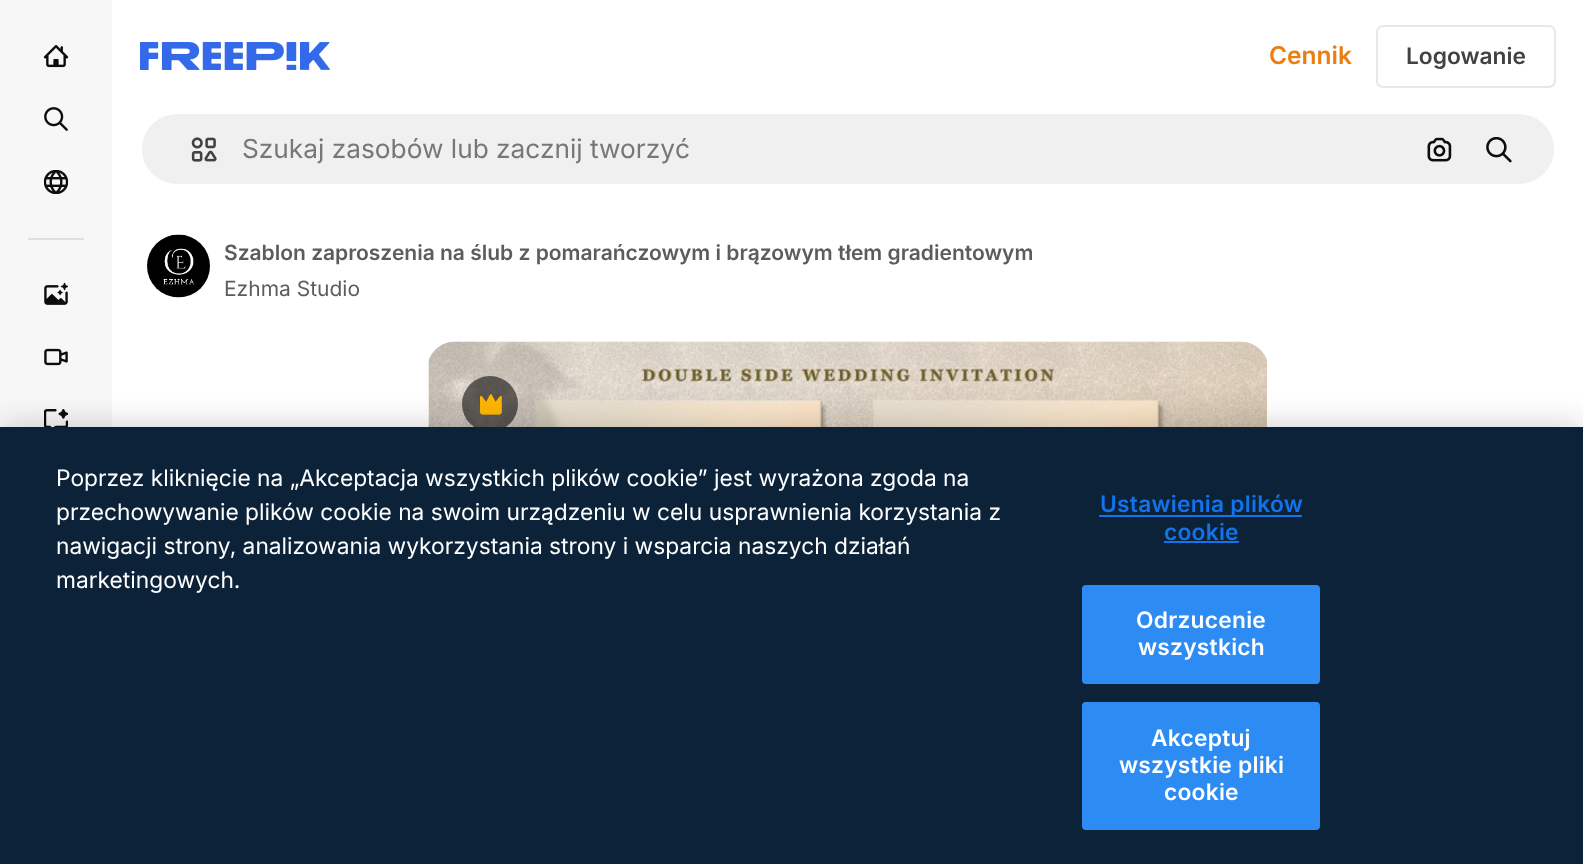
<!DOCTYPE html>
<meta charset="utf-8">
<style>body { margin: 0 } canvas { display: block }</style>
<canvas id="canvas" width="1583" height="864"></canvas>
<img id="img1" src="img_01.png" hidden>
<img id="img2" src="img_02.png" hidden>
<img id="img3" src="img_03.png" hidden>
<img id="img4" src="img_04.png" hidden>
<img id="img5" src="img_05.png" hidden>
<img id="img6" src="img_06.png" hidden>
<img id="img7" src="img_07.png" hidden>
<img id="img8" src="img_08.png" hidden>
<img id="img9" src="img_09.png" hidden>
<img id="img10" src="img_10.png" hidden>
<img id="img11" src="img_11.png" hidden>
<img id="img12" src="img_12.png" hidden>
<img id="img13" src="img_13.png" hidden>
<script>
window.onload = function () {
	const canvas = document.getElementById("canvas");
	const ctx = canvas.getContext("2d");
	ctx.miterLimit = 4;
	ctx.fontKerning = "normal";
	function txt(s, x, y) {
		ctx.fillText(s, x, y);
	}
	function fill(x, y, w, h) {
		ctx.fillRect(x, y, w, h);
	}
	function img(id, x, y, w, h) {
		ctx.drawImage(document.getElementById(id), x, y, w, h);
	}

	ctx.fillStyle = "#FFFFFF";
	fill(0, 0, 1583, 864);
	ctx.fillStyle = "#F7F7F7";
	fill(0, 0, 112, 427);
	img("img1", 44, 45, 24, 23);
	img("img2", 44, 107, 24, 24);
	img("img3", 44, 170, 24, 24);
	ctx.fillStyle = "#E0E0E0";
	fill(28, 238, 56, 2);
	img("img4", 44, 282, 24, 23);
	img("img5", 44, 348, 24, 18);
	img("img6", 44, 409, 24, 18);
	img("img7", 140, 42, 190, 28);
	ctx.beginPath();
	ctx.roundRect(1377, 26, 178, 61, 6);
	ctx.strokeStyle = "#E7E7E7";
	ctx.lineWidth = 2;
	ctx.stroke();
	ctx.fillStyle = "#F0F0F0";
	ctx.beginPath();
	ctx.roundRect(141, 113, 1414, 72, 36);
	ctx.fill();
	ctx.strokeStyle = "#FFFFFF";
	ctx.stroke();
	img("img8", 191, 137, 26, 25);
	img("img9", 1427, 137, 25, 25);
	img("img10", 1486, 137, 26, 26);
	img("img11", 147, 234, 63, 64);
	img("img12", 428, 341, 839, 86);
	ctx.fillStyle = "rgba(13, 13, 13, 0.6)";
	ctx.beginPath();
	ctx.arc(490, 404, 28, 0, Math.PI * 2);
	ctx.fill();
	img("img13", 480, 394, 22, 21);
	ctx.fillStyle = "rgba(0, 0, 0, 0.2)";
	ctx.filter = "blur(16px)";
	ctx.beginPath();
	ctx.rect(0, 427, 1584, 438);
	ctx.fill();
	ctx.filter = "none";
	ctx.fillStyle = "#0B2239";
	fill(0, 427, 1583, 437);
	ctx.fillStyle = "#1273EB";
	fill(1099, 515, 203, 2);
	fill(1164, 541, 75, 2);
	ctx.fillStyle = "#2C8CF4";
	ctx.beginPath();
	ctx.roundRect(1083, 586, 236, 97, 3);
	ctx.fill();
	ctx.strokeStyle = "#2C8CF4";
	ctx.stroke();
	ctx.beginPath();
	ctx.roundRect(1083, 703, 236, 126, 3);
	ctx.fill();
	ctx.stroke();
	ctx.font = "600 24.5px Inter";
	ctx.fillStyle = "#EA7E11";
	txt("Cennik", 1269, 64);
	ctx.font = "600 22.75px Inter";
	ctx.fillStyle = "#424242";
	txt("Logowanie", 1406, 64);
	ctx.font = "26.25px Inter";
	ctx.fillStyle = "#777777";
	txt("Szukaj zasobów lub zacznij tworzyć", 242, 158);
	ctx.font = "600 21px Inter";
	ctx.fillStyle = "#5C5C5C";
	txt("Szablon zaproszenia na ślub z pomarańczowym i brązowym tłem gradientowym", 224, 260);
	ctx.font = "21px Inter";
	txt("Ezhma Studio", 224, 296);
	ctx.font = "22.75px Inter";
	ctx.fillStyle = "#FFFFFF";
	txt("Poprzez kliknięcie na „Akceptacja wszystkich plików cookie” jest wyrażona zgoda na", 56, 486);
	txt("przechowywanie plików cookie na swoim urządzeniu w celu usprawnienia korzystania z", 56, 520);
	txt("nawigacji strony, analizowania wykorzystania strony i wsparcia naszych działań", 56, 554);
	txt("marketingowych.", 56, 588);
	ctx.letterSpacing = "0.25px";
	ctx.font = "600 22.75px Inter";
	ctx.fillStyle = "#1273EB";
	txt("Ustawienia plików", 1100, 512);
	txt("cookie", 1164, 540);
	ctx.fillStyle = "#FFFFFF";
	txt("Odrzucenie", 1136, 628);
	txt("wszystkich", 1138, 655);
	txt("Akceptuj", 1151, 746);
	txt("wszystkie pliki", 1119, 773);
	txt("cookie", 1164, 800);
};
</script>
